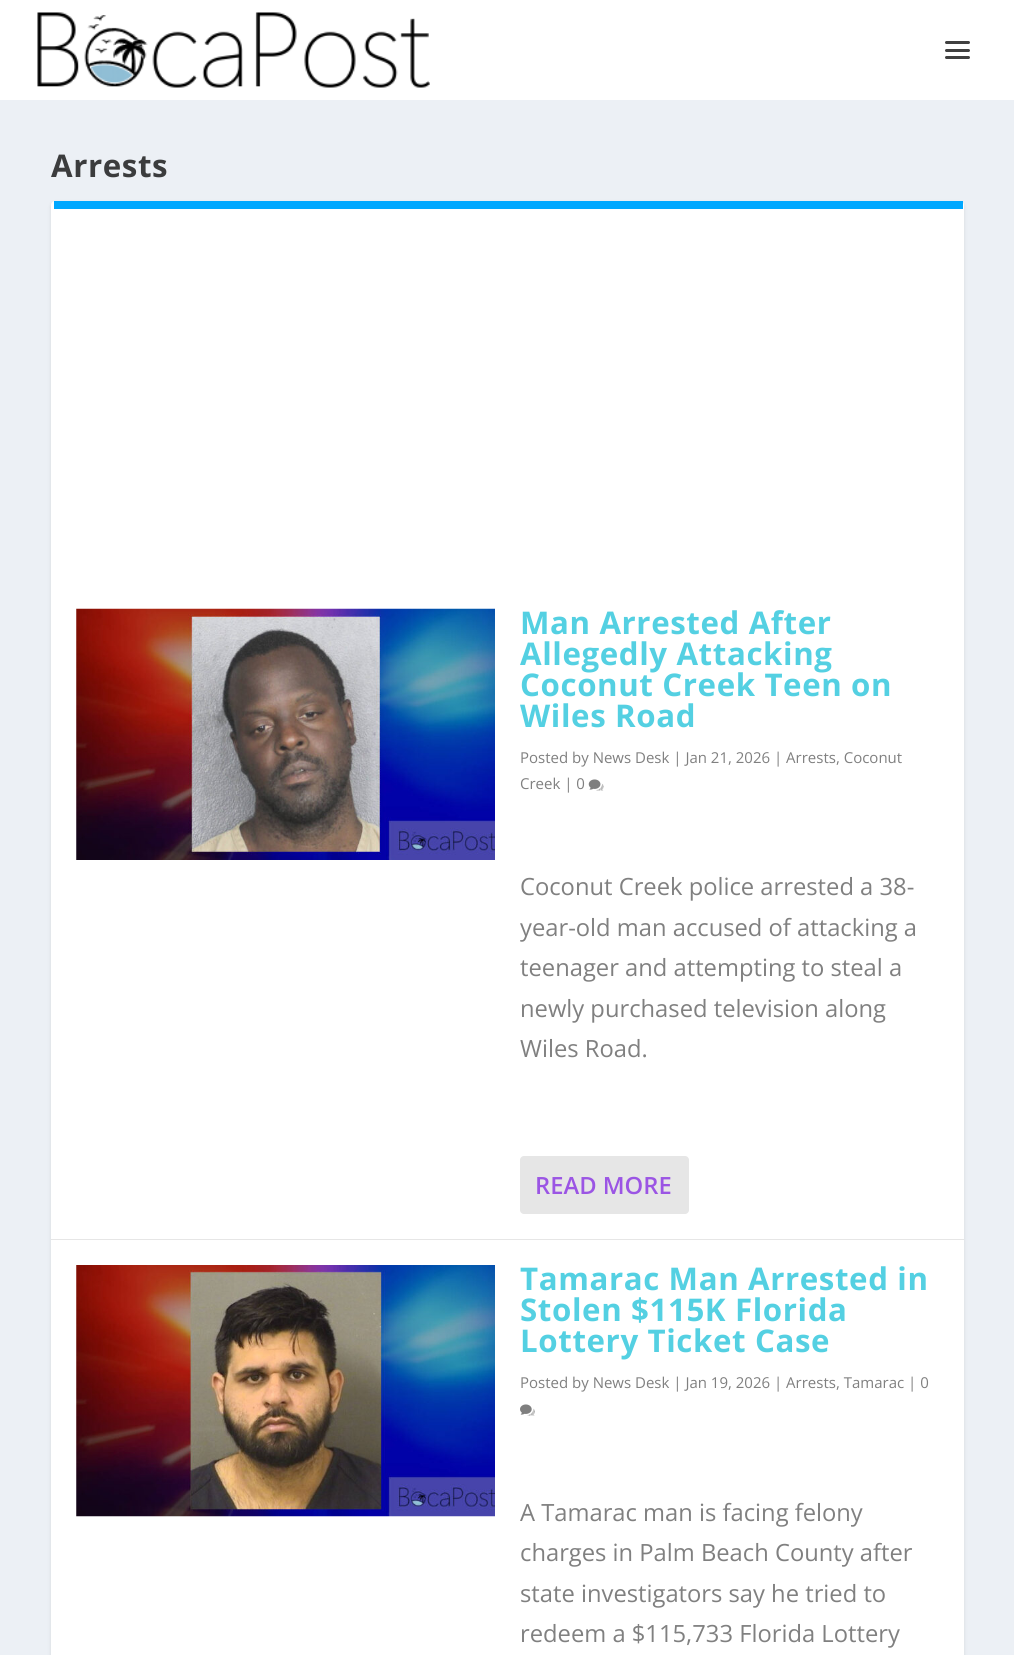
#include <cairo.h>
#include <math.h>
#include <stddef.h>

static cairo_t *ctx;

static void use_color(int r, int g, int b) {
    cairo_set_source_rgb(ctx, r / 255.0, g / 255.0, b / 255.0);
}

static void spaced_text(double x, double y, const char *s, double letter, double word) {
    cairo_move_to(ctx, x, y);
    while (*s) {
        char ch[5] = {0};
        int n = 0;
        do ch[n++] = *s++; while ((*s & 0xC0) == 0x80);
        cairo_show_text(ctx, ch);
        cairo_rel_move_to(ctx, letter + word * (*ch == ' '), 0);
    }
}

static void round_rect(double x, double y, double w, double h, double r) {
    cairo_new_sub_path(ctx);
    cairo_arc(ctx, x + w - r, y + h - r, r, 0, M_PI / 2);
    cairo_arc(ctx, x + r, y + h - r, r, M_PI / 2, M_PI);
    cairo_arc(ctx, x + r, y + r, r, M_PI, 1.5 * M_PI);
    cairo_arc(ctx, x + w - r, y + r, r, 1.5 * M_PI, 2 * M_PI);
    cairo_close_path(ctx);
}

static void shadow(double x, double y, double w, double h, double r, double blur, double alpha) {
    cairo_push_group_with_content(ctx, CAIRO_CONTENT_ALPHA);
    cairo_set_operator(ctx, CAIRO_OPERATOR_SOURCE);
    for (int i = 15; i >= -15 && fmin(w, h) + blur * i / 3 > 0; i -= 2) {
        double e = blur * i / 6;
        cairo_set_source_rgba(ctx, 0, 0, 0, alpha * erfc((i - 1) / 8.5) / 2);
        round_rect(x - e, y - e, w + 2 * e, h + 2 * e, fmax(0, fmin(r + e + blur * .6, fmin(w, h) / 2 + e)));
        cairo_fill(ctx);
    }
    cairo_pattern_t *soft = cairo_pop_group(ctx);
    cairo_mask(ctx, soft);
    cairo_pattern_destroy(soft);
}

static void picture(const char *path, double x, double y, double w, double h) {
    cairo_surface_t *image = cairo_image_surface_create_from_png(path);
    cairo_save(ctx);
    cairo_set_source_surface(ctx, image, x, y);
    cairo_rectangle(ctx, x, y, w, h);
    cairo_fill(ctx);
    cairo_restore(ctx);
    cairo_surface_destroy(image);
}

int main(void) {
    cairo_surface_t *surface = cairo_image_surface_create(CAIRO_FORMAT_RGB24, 1014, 1655);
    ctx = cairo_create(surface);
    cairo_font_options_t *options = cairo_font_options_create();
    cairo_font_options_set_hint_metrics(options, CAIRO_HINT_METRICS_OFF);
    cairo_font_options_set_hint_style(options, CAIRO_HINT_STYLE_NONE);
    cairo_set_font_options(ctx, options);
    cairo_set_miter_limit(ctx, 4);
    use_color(236, 240, 245);
    cairo_paint(ctx);
    use_color(255, 255, 255);
    cairo_rectangle(ctx, 0, 0, 1014, 100);
    cairo_fill(ctx);
    picture("img1.png", 37, 12, 393, 76);
    use_color(64, 64, 64);
    round_rect(945, 41, 25, 3, 1.5);
    cairo_fill(ctx);
    round_rect(945, 49, 25, 3, 1.5);
    cairo_fill(ctx);
    round_rect(945, 56, 25, 3, 1.5);
    cairo_fill(ctx);
    cairo_select_font_face(ctx, "Open Sans", CAIRO_FONT_SLANT_NORMAL, CAIRO_FONT_WEIGHT_BOLD);
    cairo_set_font_size(ctx, 31.25);
    use_color(59, 60, 61);
    spaced_text(51, 177, "Arrests", 0.6, 0);
    use_color(0, 0, 0);
    shadow(51, 203, 913, 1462, 4, 2, 0.1);
    use_color(255, 255, 255);
    round_rect(51, 201, 913, 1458, 4);
    cairo_fill(ctx);
    use_color(0, 168, 255);
    cairo_rectangle(ctx, 54, 201, 909, 8);
    cairo_fill(ctx);
    use_color(230, 230, 230);
    cairo_rectangle(ctx, 51, 1239, 913, 1);
    cairo_fill(ctx);
    picture("img2.png", 76, 608, 419, 252);
    use_color(84, 208, 226);
    spaced_text(520, 634, "Man Arrested After", 0.6, 0);
    spaced_text(520, 665, "Allegedly Attacking", 0.6, 0);
    spaced_text(520, 696, "Coconut Creek Teen on", 0.6, 0);
    spaced_text(520, 727, "Wiles Road", 0.6, 0);
    cairo_select_font_face(ctx, "Open Sans", CAIRO_FONT_SLANT_NORMAL, CAIRO_FONT_WEIGHT_NORMAL);
    cairo_set_font_size(ctx, 15);
    use_color(128, 128, 128);
    cairo_move_to(ctx, 520, 763);
    cairo_show_text(ctx, "Posted by News Desk | Jan 21, 2026 | Arrests, Coconut");
    cairo_move_to(ctx, 520, 789);
    cairo_show_text(ctx, "Creek | 0");
    picture("img3.png", 588, 779, 16, 12);
    cairo_set_font_size(ctx, 23.75);
    cairo_move_to(ctx, 520, 895);
    cairo_show_text(ctx, "Coconut Creek police arrested a 38-");
    cairo_move_to(ctx, 520, 936);
    cairo_show_text(ctx, "year-old man accused of attacking a");
    cairo_move_to(ctx, 520, 976);
    cairo_show_text(ctx, "teenager and attempting to steal a");
    cairo_move_to(ctx, 520, 1017);
    cairo_show_text(ctx, "newly purchased television along");
    cairo_move_to(ctx, 520, 1057);
    cairo_show_text(ctx, "Wiles Road.");
    use_color(230, 230, 230);
    round_rect(520, 1156, 169, 58, 4);
    cairo_fill(ctx);
    cairo_select_font_face(ctx, "Open Sans SemiBold", CAIRO_FONT_SLANT_NORMAL, CAIRO_FONT_WEIGHT_NORMAL);
    use_color(155, 85, 228);
    cairo_move_to(ctx, 535, 1194);
    cairo_show_text(ctx, "READ MORE");
    picture("img4.png", 76, 1265, 419, 252);
    cairo_select_font_face(ctx, "Open Sans", CAIRO_FONT_SLANT_NORMAL, CAIRO_FONT_WEIGHT_BOLD);
    cairo_set_font_size(ctx, 31.25);
    use_color(84, 208, 226);
    spaced_text(520, 1290, "Tamarac Man Arrested in", 0.6, 0);
    spaced_text(520, 1321, "Stolen $115K Florida", 0.6, 0);
    spaced_text(520, 1352, "Lottery Ticket Case", 0.6, 0);
    cairo_select_font_face(ctx, "Open Sans", CAIRO_FONT_SLANT_NORMAL, CAIRO_FONT_WEIGHT_NORMAL);
    cairo_set_font_size(ctx, 15);
    use_color(128, 128, 128);
    cairo_move_to(ctx, 520, 1388);
    cairo_show_text(ctx, "Posted by News Desk | Jan 19, 2026 | Arrests, Tamarac | 0");
    picture("img5.png", 520, 1404, 15, 12);
    cairo_set_font_size(ctx, 23.75);
    cairo_move_to(ctx, 520, 1521);
    cairo_show_text(ctx, "A Tamarac man is facing felony");
    cairo_move_to(ctx, 520, 1561);
    cairo_show_text(ctx, "charges in Palm Beach County after");
    cairo_move_to(ctx, 520, 1602);
    cairo_show_text(ctx, "state investigators say he tried to");
    cairo_move_to(ctx, 520, 1642);
    cairo_show_text(ctx, "redeem a $115,733 Florida Lottery");
    cairo_surface_write_to_png(surface, "result.png");
    cairo_font_options_destroy(options);
    cairo_destroy(ctx);
    cairo_surface_destroy(surface);
    return 0;
}
